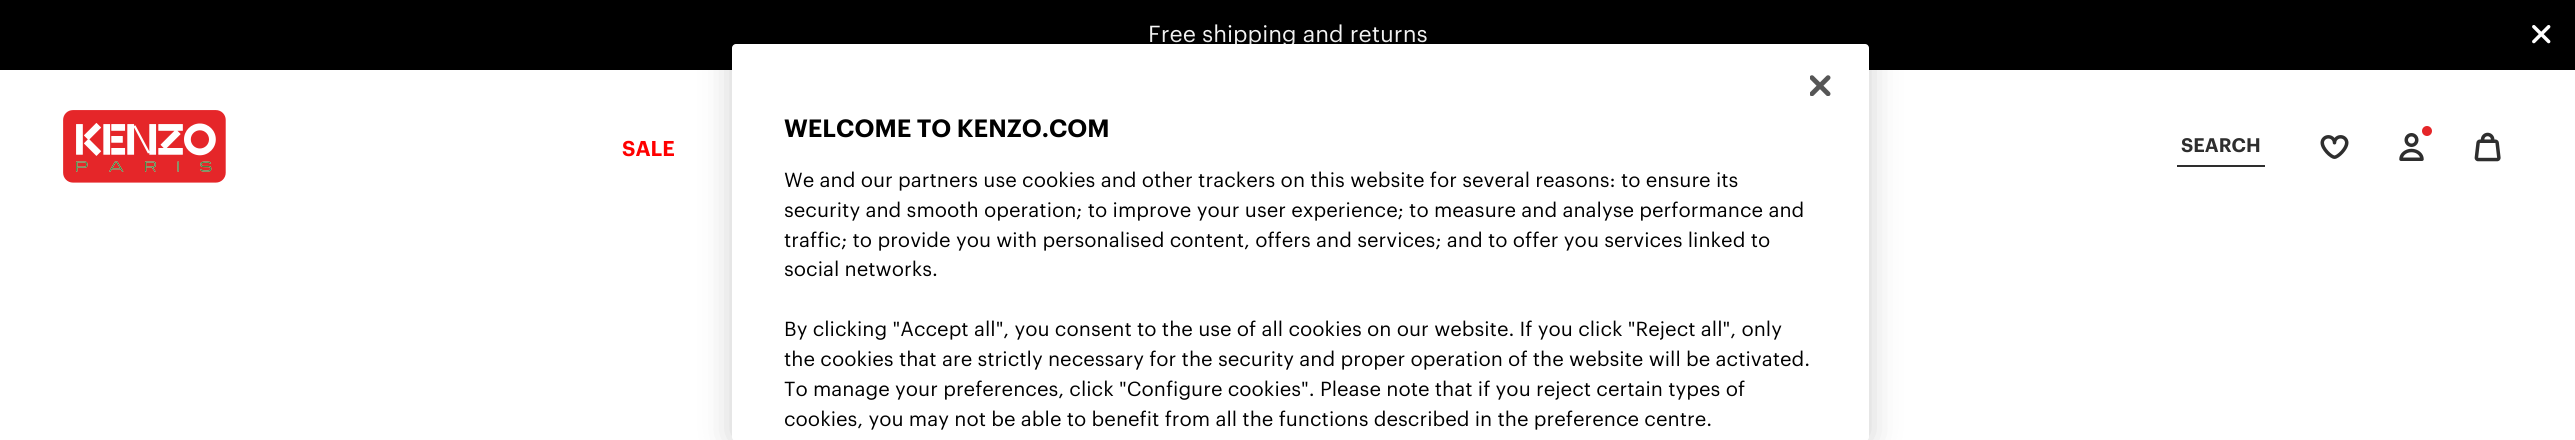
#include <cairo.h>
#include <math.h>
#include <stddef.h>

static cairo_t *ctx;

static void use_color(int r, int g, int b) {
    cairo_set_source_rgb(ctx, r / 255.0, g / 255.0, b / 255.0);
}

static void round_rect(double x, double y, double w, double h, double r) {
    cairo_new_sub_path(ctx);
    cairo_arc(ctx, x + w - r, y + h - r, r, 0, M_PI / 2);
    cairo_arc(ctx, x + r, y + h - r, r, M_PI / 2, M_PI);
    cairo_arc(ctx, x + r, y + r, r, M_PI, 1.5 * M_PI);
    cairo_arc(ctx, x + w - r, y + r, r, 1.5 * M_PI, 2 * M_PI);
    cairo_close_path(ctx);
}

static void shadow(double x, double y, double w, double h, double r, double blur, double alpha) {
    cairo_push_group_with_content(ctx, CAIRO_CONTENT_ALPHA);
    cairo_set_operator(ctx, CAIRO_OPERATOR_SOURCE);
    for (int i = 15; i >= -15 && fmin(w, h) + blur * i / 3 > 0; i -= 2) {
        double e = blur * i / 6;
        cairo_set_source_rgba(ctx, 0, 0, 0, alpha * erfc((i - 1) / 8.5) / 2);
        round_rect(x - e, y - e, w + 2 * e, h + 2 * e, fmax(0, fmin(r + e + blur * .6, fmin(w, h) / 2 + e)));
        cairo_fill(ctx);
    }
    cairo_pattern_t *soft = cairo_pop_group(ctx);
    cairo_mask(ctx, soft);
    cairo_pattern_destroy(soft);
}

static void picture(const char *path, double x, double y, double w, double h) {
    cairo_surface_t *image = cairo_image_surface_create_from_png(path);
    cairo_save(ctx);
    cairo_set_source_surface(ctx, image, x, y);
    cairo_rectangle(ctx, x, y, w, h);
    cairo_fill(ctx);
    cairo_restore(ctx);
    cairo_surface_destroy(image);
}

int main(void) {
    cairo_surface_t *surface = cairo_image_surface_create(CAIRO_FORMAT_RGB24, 2575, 440);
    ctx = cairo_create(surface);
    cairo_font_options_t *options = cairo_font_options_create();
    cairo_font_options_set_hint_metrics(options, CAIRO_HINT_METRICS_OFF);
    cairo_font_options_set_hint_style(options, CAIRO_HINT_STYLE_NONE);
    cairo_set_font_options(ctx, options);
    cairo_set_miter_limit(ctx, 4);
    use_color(255, 255, 255);
    cairo_paint(ctx);
    use_color(0, 0, 0);
    cairo_rectangle(ctx, 0, 0, 2575, 70);
    cairo_fill(ctx);
    cairo_select_font_face(ctx, "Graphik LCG", CAIRO_FONT_SLANT_NORMAL, CAIRO_FONT_WEIGHT_NORMAL);
    cairo_set_font_size(ctx, 22.75);
    use_color(255, 255, 255);
    cairo_move_to(ctx, 1148, 42);
    cairo_show_text(ctx, "Free shipping and returns");
    picture("img1.png", 2532, 25, 19, 19);
    picture("img2.png", 63, 110, 163, 73);
    cairo_select_font_face(ctx, "Graphik SemiBold", CAIRO_FONT_SLANT_NORMAL, CAIRO_FONT_WEIGHT_NORMAL);
    cairo_set_font_size(ctx, 21);
    use_color(255, 0, 0);
    cairo_move_to(ctx, 622, 156);
    cairo_show_text(ctx, "SALE");
    use_color(46, 46, 46);
    cairo_rectangle(ctx, 2177, 165, 88, 2);
    cairo_fill(ctx);
    cairo_set_font_size(ctx, 19.25);
    cairo_move_to(ctx, 2181, 152);
    cairo_show_text(ctx, "SEARCH");
    picture("img3.png", 2320, 135, 29, 24);
    picture("img4.png", 2399, 126, 33, 35);
    picture("img5.png", 2474, 132, 27, 30);
    use_color(0, 0, 0);
    shadow(732, 44, 1137, 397, 4, 16, 0.2);
    use_color(255, 255, 255);
    round_rect(732, 44, 1137, 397, 4);
    cairo_fill(ctx);
    picture("img6.png", 1810, 75, 21, 21);
    cairo_set_font_size(ctx, 24.5);
    use_color(0, 0, 0);
    cairo_move_to(ctx, 784, 137);
    cairo_show_text(ctx, "WELCOME TO KENZO.COM");
    cairo_select_font_face(ctx, "Graphik LCG", CAIRO_FONT_SLANT_NORMAL, CAIRO_FONT_WEIGHT_NORMAL);
    cairo_set_font_size(ctx, 19.92);
    cairo_move_to(ctx, 784, 187);
    cairo_show_text(ctx, "We and our partners use cookies and other trackers on this website for several reasons: to ensure its");
    cairo_move_to(ctx, 784, 217);
    cairo_show_text(ctx, "security and smooth operation; to improve your user experience; to measure and analyse performance and");
    cairo_move_to(ctx, 784, 247);
    cairo_show_text(ctx, "traffic; to provide you with personalised content, offers and services; and to offer you services linked to");
    cairo_move_to(ctx, 784, 276);
    cairo_show_text(ctx, "social networks.");
    cairo_move_to(ctx, 784, 336);
    cairo_show_text(ctx, "By clicking \"Accept all\", you consent to the use of all cookies on our website. If you click \"Reject all\", only");
    cairo_move_to(ctx, 784, 366);
    cairo_show_text(ctx, "the cookies that are strictly necessary for the security and proper operation of the website will be activated.");
    cairo_move_to(ctx, 784, 396);
    cairo_show_text(ctx, "To manage your preferences, click \"Configure cookies\". Please note that if you reject certain types of");
    cairo_move_to(ctx, 784, 426);
    cairo_show_text(ctx, "cookies, you may not be able to benefit from all the functions described in the preference centre.");
    cairo_surface_write_to_png(surface, "result.png");
    cairo_font_options_destroy(options);
    cairo_destroy(ctx);
    cairo_surface_destroy(surface);
    return 0;
}
